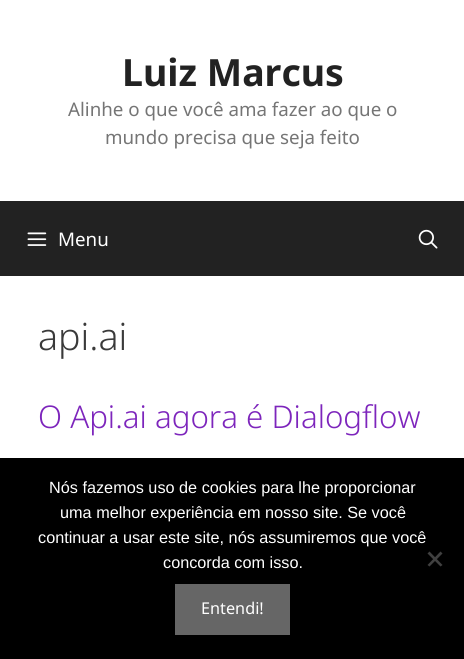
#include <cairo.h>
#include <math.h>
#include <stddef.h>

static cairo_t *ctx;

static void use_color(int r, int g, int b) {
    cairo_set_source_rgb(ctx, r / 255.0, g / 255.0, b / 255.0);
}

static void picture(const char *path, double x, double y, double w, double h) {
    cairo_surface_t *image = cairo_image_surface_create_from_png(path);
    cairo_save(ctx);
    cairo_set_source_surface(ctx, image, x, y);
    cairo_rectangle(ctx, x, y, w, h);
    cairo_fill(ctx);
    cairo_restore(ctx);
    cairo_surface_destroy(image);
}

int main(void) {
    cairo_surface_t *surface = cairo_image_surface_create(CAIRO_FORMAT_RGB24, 464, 659);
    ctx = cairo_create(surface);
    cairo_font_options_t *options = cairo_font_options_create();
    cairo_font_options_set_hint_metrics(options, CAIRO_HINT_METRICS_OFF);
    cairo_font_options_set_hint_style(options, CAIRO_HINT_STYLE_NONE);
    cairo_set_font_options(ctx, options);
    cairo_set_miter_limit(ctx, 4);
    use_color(34, 34, 34);
    cairo_paint(ctx);
    use_color(255, 255, 255);
    cairo_rectangle(ctx, 0, 0, 464, 201);
    cairo_fill(ctx);
    cairo_select_font_face(ctx, "Noto Sans", CAIRO_FONT_SLANT_NORMAL, CAIRO_FONT_WEIGHT_BOLD);
    cairo_set_font_size(ctx, 37.5);
    use_color(34, 34, 34);
    cairo_move_to(ctx, 122, 86);
    cairo_show_text(ctx, "Luiz Marcus");
    cairo_select_font_face(ctx, "Noto Sans", CAIRO_FONT_SLANT_NORMAL, CAIRO_FONT_WEIGHT_NORMAL);
    cairo_set_font_size(ctx, 18.75);
    use_color(117, 117, 117);
    cairo_move_to(ctx, 68, 116);
    cairo_show_text(ctx, "Alinhe o que você ama fazer ao que o");
    cairo_move_to(ctx, 105, 144);
    cairo_show_text(ctx, "mundo precisa que seja feito");
    picture("img1.png", 27, 232, 20, 14);
    use_color(255, 255, 255);
    cairo_move_to(ctx, 58, 246);
    cairo_show_text(ctx, "Menu");
    picture("img2.png", 418, 229, 20, 20);
    cairo_rectangle(ctx, 0, 276, 464, 182);
    cairo_fill(ctx);
    cairo_select_font_face(ctx, "Noto Sans Light", CAIRO_FONT_SLANT_NORMAL, CAIRO_FONT_WEIGHT_NORMAL);
    cairo_set_font_size(ctx, 37.5);
    use_color(58, 58, 58);
    cairo_move_to(ctx, 38, 350);
    cairo_show_text(ctx, "api.ai");
    cairo_set_font_size(ctx, 31.25);
    use_color(125, 37, 188);
    cairo_move_to(ctx, 38, 428);
    cairo_show_text(ctx, "O Api.ai agora é Dialogflow");
    use_color(0, 0, 0);
    cairo_rectangle(ctx, 0, 458, 464, 201);
    cairo_fill(ctx);
    cairo_select_font_face(ctx, "Liberation Sans", CAIRO_FONT_SLANT_NORMAL, CAIRO_FONT_WEIGHT_NORMAL);
    cairo_set_font_size(ctx, 16.25);
    use_color(255, 255, 255);
    cairo_move_to(ctx, 49, 493);
    cairo_show_text(ctx, "Nós fazemos uso de cookies para lhe proporcionar");
    cairo_move_to(ctx, 60, 518);
    cairo_show_text(ctx, "uma melhor experiência em nosso site. Se você");
    cairo_move_to(ctx, 38, 543);
    cairo_show_text(ctx, "continuar a usar este site, nós assumiremos que você");
    cairo_move_to(ctx, 163, 568);
    cairo_show_text(ctx, "concorda com isso.");
    use_color(64, 64, 64);
    cairo_new_path(ctx);
    cairo_move_to(ctx, 440.5, 551.5);
    cairo_line_to(ctx, 442.5, 553.5);
    cairo_line_to(ctx, 429.5, 566.5);
    cairo_line_to(ctx, 427.5, 565);
    cairo_close_path(ctx);
    cairo_fill(ctx);
    cairo_new_path(ctx);
    cairo_move_to(ctx, 427.5, 553.5);
    cairo_line_to(ctx, 429.5, 551.5);
    cairo_line_to(ctx, 442.5, 565);
    cairo_line_to(ctx, 440.5, 566.5);
    cairo_close_path(ctx);
    cairo_fill(ctx);
    use_color(102, 102, 102);
    cairo_rectangle(ctx, 175, 584, 115, 51);
    cairo_fill(ctx);
    cairo_select_font_face(ctx, "Noto Sans", CAIRO_FONT_SLANT_NORMAL, CAIRO_FONT_WEIGHT_NORMAL);
    use_color(255, 255, 255);
    cairo_move_to(ctx, 201, 614);
    cairo_show_text(ctx, "Entendi!");
    cairo_surface_write_to_png(surface, "result.png");
    cairo_font_options_destroy(options);
    cairo_destroy(ctx);
    cairo_surface_destroy(surface);
    return 0;
}
